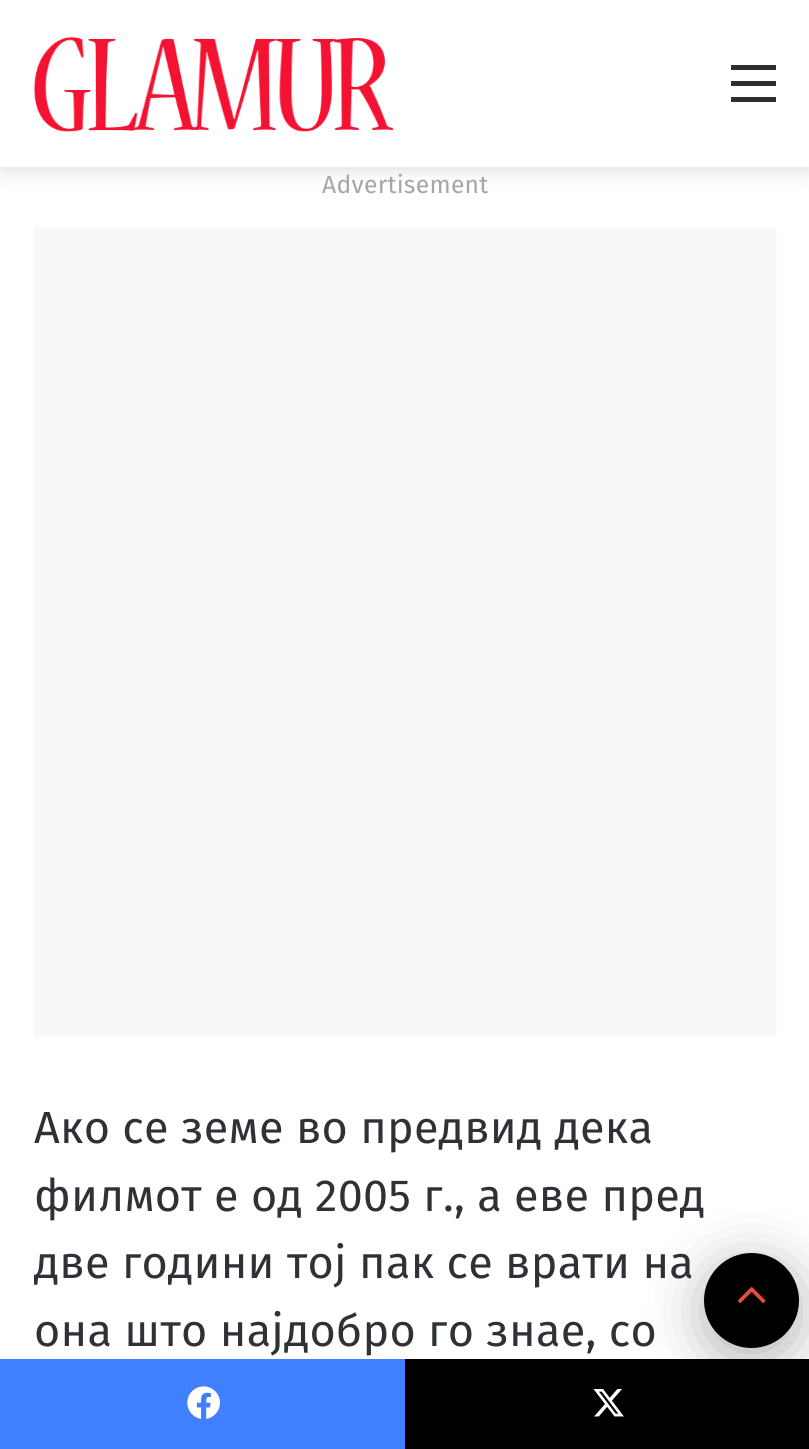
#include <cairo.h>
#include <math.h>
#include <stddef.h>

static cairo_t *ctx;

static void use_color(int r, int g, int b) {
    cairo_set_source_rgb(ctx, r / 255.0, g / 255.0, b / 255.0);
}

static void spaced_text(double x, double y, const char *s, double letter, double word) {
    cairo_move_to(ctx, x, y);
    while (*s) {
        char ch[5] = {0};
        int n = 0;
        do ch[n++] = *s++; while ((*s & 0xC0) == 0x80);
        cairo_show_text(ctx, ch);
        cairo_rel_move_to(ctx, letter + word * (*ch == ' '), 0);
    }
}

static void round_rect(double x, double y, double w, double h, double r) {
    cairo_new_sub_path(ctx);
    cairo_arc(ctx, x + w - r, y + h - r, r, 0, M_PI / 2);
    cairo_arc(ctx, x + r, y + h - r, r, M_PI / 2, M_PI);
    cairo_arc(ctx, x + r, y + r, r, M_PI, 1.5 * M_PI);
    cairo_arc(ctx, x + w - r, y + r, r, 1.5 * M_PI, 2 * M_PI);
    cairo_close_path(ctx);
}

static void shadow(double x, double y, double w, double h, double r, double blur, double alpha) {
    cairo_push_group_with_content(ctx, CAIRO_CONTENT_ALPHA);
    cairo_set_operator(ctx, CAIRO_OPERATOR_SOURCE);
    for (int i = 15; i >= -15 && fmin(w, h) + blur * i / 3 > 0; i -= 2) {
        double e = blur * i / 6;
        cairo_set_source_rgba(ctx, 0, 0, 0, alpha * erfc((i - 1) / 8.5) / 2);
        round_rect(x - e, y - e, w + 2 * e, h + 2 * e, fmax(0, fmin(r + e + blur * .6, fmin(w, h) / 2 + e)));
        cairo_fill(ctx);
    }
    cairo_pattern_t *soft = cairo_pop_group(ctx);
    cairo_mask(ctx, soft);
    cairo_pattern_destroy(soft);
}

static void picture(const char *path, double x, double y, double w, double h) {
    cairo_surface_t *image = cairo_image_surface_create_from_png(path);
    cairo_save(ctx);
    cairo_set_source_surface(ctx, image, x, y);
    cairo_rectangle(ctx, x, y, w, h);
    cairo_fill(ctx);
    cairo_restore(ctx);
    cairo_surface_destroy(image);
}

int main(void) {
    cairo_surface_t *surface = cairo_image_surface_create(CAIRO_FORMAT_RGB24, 809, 1449);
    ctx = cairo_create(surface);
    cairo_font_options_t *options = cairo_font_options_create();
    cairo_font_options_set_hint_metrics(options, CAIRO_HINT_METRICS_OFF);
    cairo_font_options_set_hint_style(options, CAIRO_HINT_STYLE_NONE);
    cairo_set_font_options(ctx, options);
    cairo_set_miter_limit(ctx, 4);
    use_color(255, 255, 255);
    cairo_paint(ctx);
    cairo_save(ctx);
    cairo_set_fill_rule(ctx, CAIRO_FILL_RULE_EVEN_ODD);
    cairo_new_path(ctx);
    cairo_move_to(ctx, 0, 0);
    cairo_line_to(ctx, 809, 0);
    cairo_line_to(ctx, 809, 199);
    cairo_line_to(ctx, 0, 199);
    cairo_close_path(ctx);
    cairo_move_to(ctx, 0, 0);
    cairo_line_to(ctx, 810, 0);
    cairo_line_to(ctx, 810, 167);
    cairo_line_to(ctx, 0, 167);
    cairo_close_path(ctx);
    cairo_clip(ctx);
    use_color(99, 99, 99);
    shadow(0, 5, 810, 166, 0, 9, 0.2);
    cairo_restore(ctx);
    cairo_set_source_rgba(ctx, 1, 1, 1, 0.95);
    cairo_rectangle(ctx, 0, 166, 809, 1);
    cairo_fill(ctx);
    picture("img1.png", 34, 37, 360, 95);
    use_color(44, 47, 52);
    cairo_rectangle(ctx, 731, 81, 45, 5);
    cairo_fill(ctx);
    cairo_rectangle(ctx, 731, 65, 45, 5);
    cairo_fill(ctx);
    cairo_rectangle(ctx, 731, 97, 45, 5);
    cairo_fill(ctx);
    cairo_select_font_face(ctx, "Fira Sans", CAIRO_FONT_SLANT_NORMAL, CAIRO_FONT_WEIGHT_NORMAL);
    cairo_set_font_size(ctx, 24.75);
    use_color(166, 166, 166);
    spaced_text(322, 193, "Advertisement", 0.25, 0);
    use_color(249, 247, 247);
    cairo_rectangle(ctx, 34, 227, 742, 810);
    cairo_fill(ctx);
    cairo_set_font_size(ctx, 45);
    use_color(46, 49, 54);
    spaced_text(34, 1143, "Ако се земе во предвид дека", 0.25, 0);
    spaced_text(34, 1211, "филмот е од 2005 г., а еве пред", 0.25, 0);
    spaced_text(34, 1278, "две години тој пак се врати на", 0.25, 0);
    spaced_text(34, 1346, "она што најдобро го знае, со", 0.25, 0);
    use_color(0, 0, 0);
    shadow(704, 1265, 95, 94, 47, 28, 0.3);
    use_color(0, 0, 0);
    cairo_arc(ctx, 751.5, 1300.5, 47.5, 0, 2 * M_PI);
    cairo_fill(ctx);
    picture("img2.png", 737, 1287, 29, 16);
    use_color(64, 128, 255);
    cairo_rectangle(ctx, 0, 1359, 405, 90);
    cairo_fill(ctx);
    picture("img3.png", 187, 1386, 33, 33);
    use_color(0, 0, 0);
    cairo_rectangle(ctx, 405, 1359, 404, 90);
    cairo_fill(ctx);
    picture("img4.png", 593, 1389, 31, 28);
    cairo_surface_write_to_png(surface, "result.png");
    cairo_font_options_destroy(options);
    cairo_destroy(ctx);
    cairo_surface_destroy(surface);
    return 0;
}
